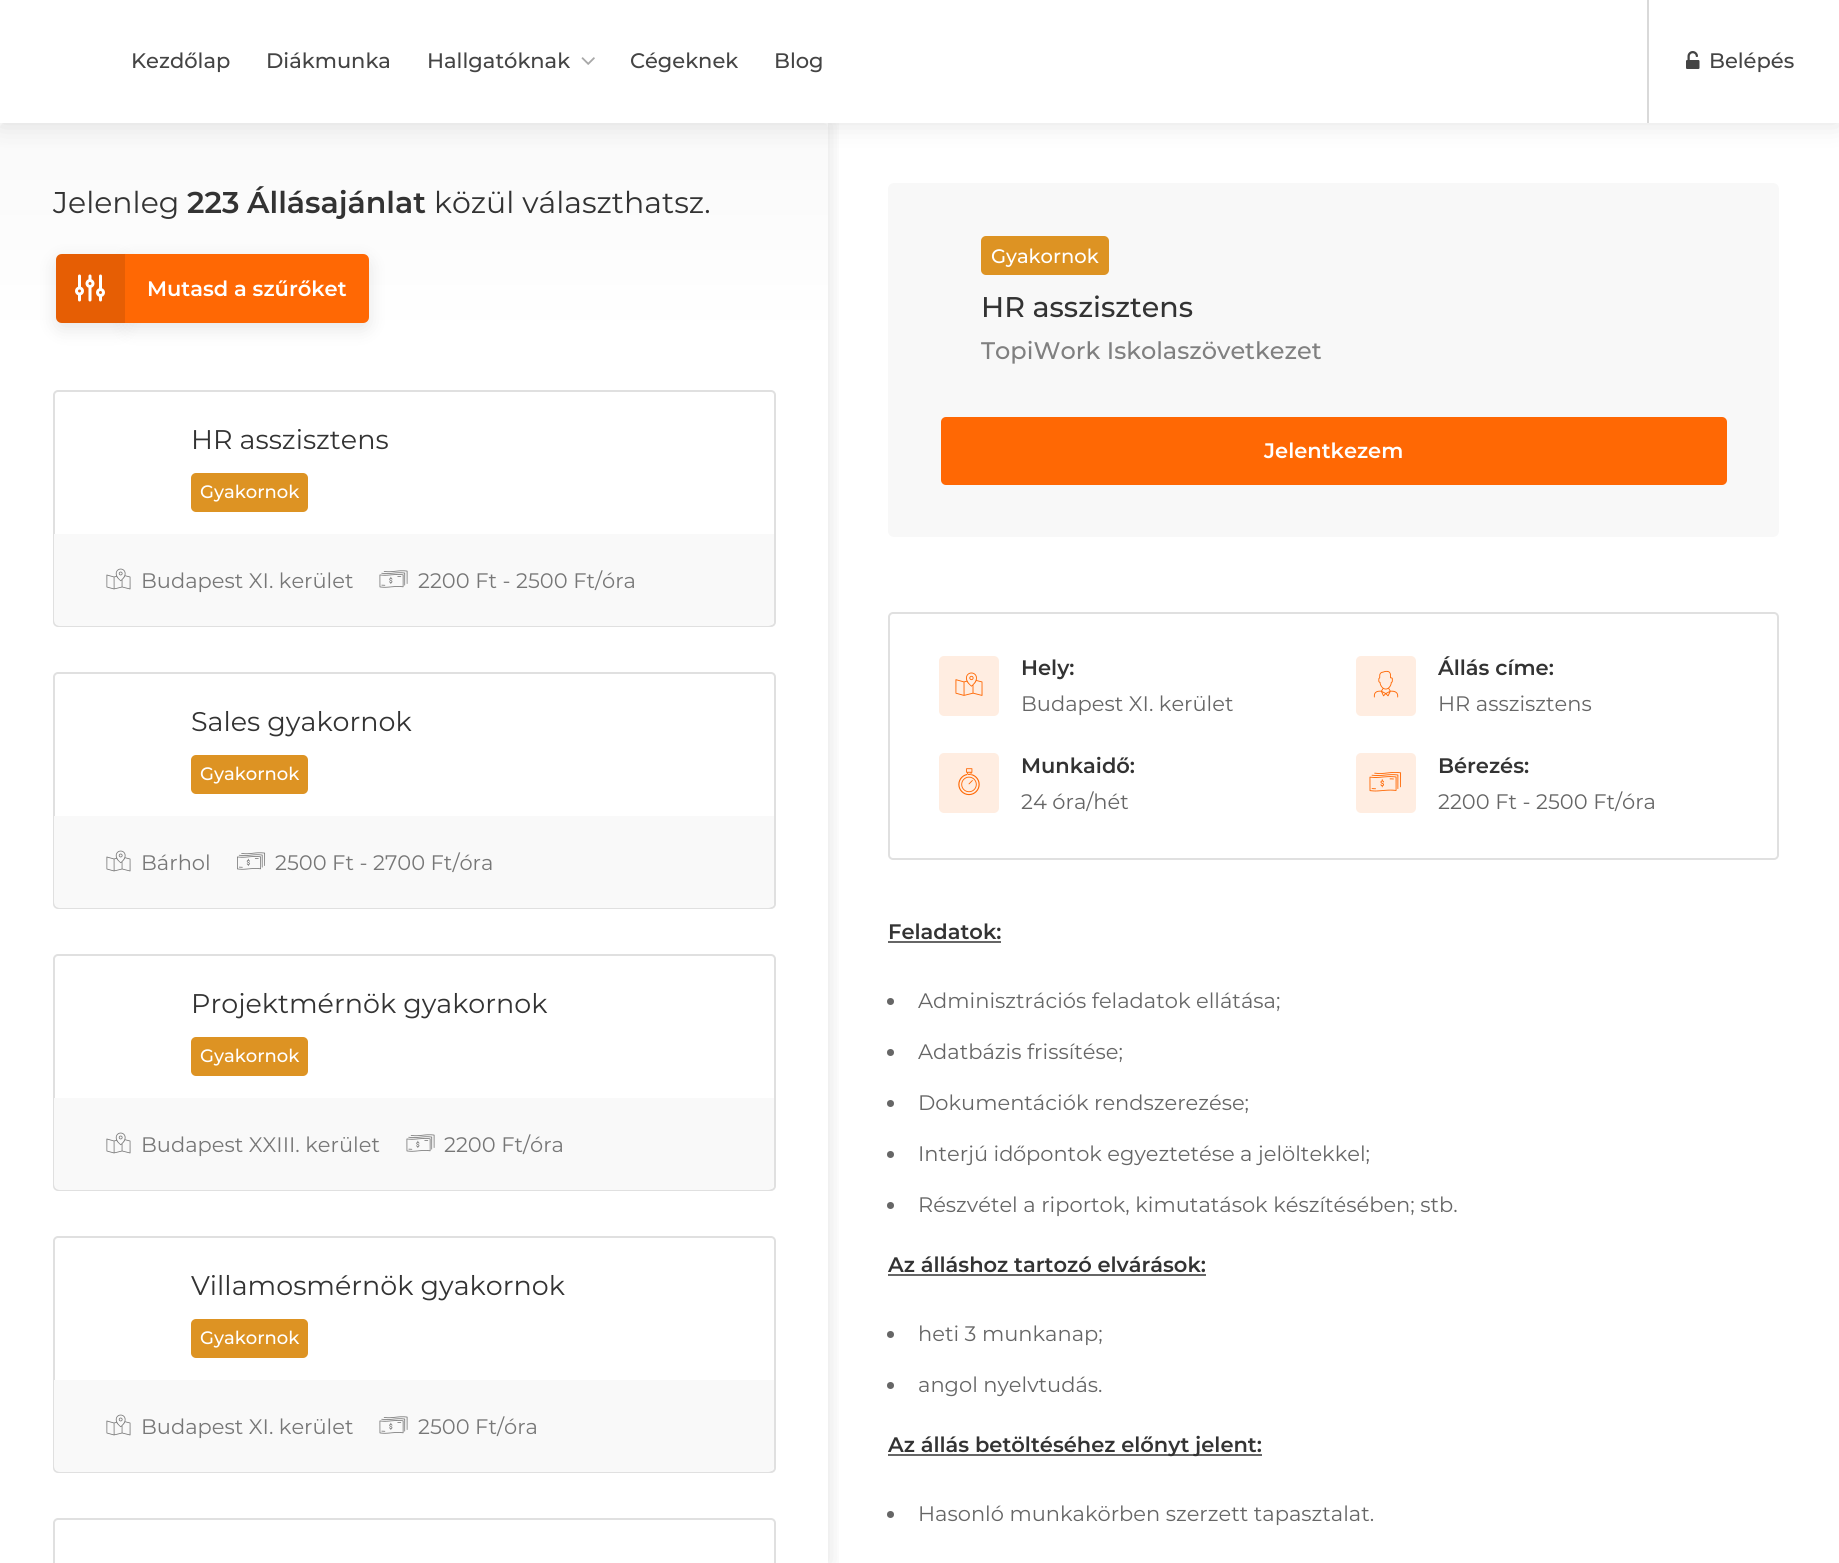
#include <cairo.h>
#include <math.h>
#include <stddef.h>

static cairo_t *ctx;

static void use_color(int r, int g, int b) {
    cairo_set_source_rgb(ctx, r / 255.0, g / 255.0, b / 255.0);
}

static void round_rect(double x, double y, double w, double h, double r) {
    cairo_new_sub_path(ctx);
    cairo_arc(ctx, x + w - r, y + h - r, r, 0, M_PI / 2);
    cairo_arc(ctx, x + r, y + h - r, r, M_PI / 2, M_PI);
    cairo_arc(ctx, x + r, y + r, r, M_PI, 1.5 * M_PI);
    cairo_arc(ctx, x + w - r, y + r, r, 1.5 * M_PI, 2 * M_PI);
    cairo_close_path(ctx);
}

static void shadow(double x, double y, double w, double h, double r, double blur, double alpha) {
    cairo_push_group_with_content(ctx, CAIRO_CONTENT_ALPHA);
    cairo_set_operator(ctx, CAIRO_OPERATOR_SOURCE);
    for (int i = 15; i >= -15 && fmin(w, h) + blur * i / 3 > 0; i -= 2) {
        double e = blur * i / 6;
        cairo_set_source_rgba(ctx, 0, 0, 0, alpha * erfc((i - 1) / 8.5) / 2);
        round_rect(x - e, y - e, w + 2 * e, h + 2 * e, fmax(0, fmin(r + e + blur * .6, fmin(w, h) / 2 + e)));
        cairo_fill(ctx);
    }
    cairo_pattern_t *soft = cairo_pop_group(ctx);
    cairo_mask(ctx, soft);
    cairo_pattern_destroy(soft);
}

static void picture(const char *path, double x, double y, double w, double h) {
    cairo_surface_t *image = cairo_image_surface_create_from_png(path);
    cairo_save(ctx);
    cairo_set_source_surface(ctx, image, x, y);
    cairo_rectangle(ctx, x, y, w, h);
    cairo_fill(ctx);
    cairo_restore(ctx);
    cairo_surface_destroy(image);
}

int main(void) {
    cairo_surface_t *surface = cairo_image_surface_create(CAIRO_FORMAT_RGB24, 1839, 1563);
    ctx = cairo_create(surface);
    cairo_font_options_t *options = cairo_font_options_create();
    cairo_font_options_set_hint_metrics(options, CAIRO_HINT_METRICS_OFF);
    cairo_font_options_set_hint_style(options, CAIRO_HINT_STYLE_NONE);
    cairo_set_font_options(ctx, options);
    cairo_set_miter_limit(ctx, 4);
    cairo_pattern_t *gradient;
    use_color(255, 255, 255);
    cairo_paint(ctx);
    cairo_save(ctx);
    cairo_rectangle(ctx, 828, 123, 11, 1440);
    cairo_clip(ctx);
    use_color(0, 0, 0);
    shadow(0, 123, 828, 1440, 0, 11, 0.12);
    cairo_restore(ctx);
    gradient = cairo_pattern_create_linear(414, 123, 414, 338);
    cairo_pattern_add_color_stop_rgba(gradient, 0, 0.976, 0.976, 0.976, 1);
    cairo_pattern_add_color_stop_rgba(gradient, 1, 1, 1, 1, 1);
    cairo_set_source(ctx, gradient);
    cairo_pattern_destroy(gradient);
    round_rect(0, 123, 828, 215, 5);
    cairo_fill(ctx);
    use_color(0, 0, 0);
    shadow(0, 0, 1839, 123, 0, 13.5, 0.12);
    use_color(255, 255, 255);
    cairo_rectangle(ctx, 0, 0, 1839, 123);
    cairo_fill(ctx);
    cairo_select_font_face(ctx, "Montserrat Medium", CAIRO_FONT_SLANT_NORMAL, CAIRO_FONT_WEIGHT_NORMAL);
    cairo_set_font_size(ctx, 21);
    use_color(68, 68, 68);
    cairo_move_to(ctx, 131, 68);
    cairo_show_text(ctx, "Kezdőlap");
    cairo_move_to(ctx, 266, 68);
    cairo_show_text(ctx, "Diákmunka");
    cairo_move_to(ctx, 427, 68);
    cairo_show_text(ctx, "Hallgatóknak");
    picture("img1.png", 581, 57, 14, 8);
    cairo_move_to(ctx, 630, 68);
    cairo_show_text(ctx, "Cégeknek");
    cairo_move_to(ctx, 774, 68);
    cairo_show_text(ctx, "Blog");
    use_color(217, 217, 217);
    cairo_rectangle(ctx, 1647, 0, 2, 123);
    cairo_fill(ctx);
    picture("img2.png", 1686, 51, 14, 18);
    use_color(68, 68, 68);
    cairo_move_to(ctx, 1709, 68);
    cairo_show_text(ctx, "Belépés");
    cairo_select_font_face(ctx, "Montserrat", CAIRO_FONT_SLANT_NORMAL, CAIRO_FONT_WEIGHT_NORMAL);
    cairo_set_font_size(ctx, 30);
    use_color(51, 51, 51);
    cairo_move_to(ctx, 53, 213);
    cairo_show_text(ctx, "Jelenleg");
    cairo_select_font_face(ctx, "Montserrat SemiBold", CAIRO_FONT_SLANT_NORMAL, CAIRO_FONT_WEIGHT_NORMAL);
    cairo_move_to(ctx, 187, 213);
    cairo_show_text(ctx, "223");
    cairo_move_to(ctx, 247, 213);
    cairo_show_text(ctx, "Állásajánlat");
    cairo_select_font_face(ctx, "Montserrat", CAIRO_FONT_SLANT_NORMAL, CAIRO_FONT_WEIGHT_NORMAL);
    cairo_move_to(ctx, 434, 213);
    cairo_show_text(ctx, "közül választhatsz.");
    use_color(0, 0, 0);
    shadow(125, 260, 244, 69, 6, 9, 0.1);
    shadow(56, 260, 69, 69, 6, 9, 0.1);
    use_color(255, 104, 4);
    cairo_new_path(ctx);
    cairo_move_to(ctx, 62, 254);
    cairo_line_to(ctx, 125, 254);
    cairo_line_to(ctx, 125, 323);
    cairo_line_to(ctx, 62, 323);
    cairo_curve_to(ctx, 58.5, 323, 56, 320.5, 56, 317);
    cairo_line_to(ctx, 56, 260);
    cairo_curve_to(ctx, 56, 256.5, 58.5, 254, 62, 254);
    cairo_close_path(ctx);
    cairo_fill(ctx);
    cairo_set_source_rgba(ctx, 0, 0, 0, 0.1);
    cairo_new_path(ctx);
    cairo_move_to(ctx, 62, 254);
    cairo_line_to(ctx, 125, 254);
    cairo_line_to(ctx, 125, 323);
    cairo_line_to(ctx, 62, 323);
    cairo_curve_to(ctx, 58.5, 323, 56, 320.5, 56, 317);
    cairo_line_to(ctx, 56, 260);
    cairo_curve_to(ctx, 56, 256.5, 58.5, 254, 62, 254);
    cairo_close_path(ctx);
    cairo_fill(ctx);
    picture("img3.png", 75, 274, 30, 28);
    use_color(255, 104, 4);
    cairo_new_path(ctx);
    cairo_move_to(ctx, 125, 254);
    cairo_line_to(ctx, 363, 254);
    cairo_curve_to(ctx, 366.5, 254, 369, 256.5, 369, 260);
    cairo_line_to(ctx, 369, 317);
    cairo_curve_to(ctx, 369, 320.5, 366.5, 323, 363, 323);
    cairo_line_to(ctx, 125, 323);
    cairo_close_path(ctx);
    cairo_fill(ctx);
    cairo_select_font_face(ctx, "Montserrat SemiBold", CAIRO_FONT_SLANT_NORMAL, CAIRO_FONT_WEIGHT_NORMAL);
    cairo_set_font_size(ctx, 21);
    use_color(255, 255, 255);
    cairo_move_to(ctx, 147, 296);
    cairo_show_text(ctx, "Mutasd a szűrőket");
    round_rect(54, 391, 721, 235, 4);
    use_color(224, 224, 224);
    cairo_stroke(ctx);
    cairo_select_font_face(ctx, "Montserrat", CAIRO_FONT_SLANT_NORMAL, CAIRO_FONT_WEIGHT_NORMAL);
    cairo_set_font_size(ctx, 27);
    use_color(51, 51, 51);
    cairo_move_to(ctx, 191, 449);
    cairo_show_text(ctx, "HR asszisztens");
    use_color(221, 147, 35);
    round_rect(191, 473, 117, 39, 5);
    cairo_fill(ctx);
    cairo_select_font_face(ctx, "Montserrat Medium", CAIRO_FONT_SLANT_NORMAL, CAIRO_FONT_WEIGHT_NORMAL);
    cairo_set_font_size(ctx, 18);
    use_color(255, 255, 255);
    cairo_move_to(ctx, 200, 498);
    cairo_show_text(ctx, "Gyakornok");
    use_color(249, 249, 249);
    cairo_new_path(ctx);
    cairo_move_to(ctx, 54, 534);
    cairo_line_to(ctx, 774, 534);
    cairo_line_to(ctx, 774, 620);
    cairo_curve_to(ctx, 774, 623.5, 771.5, 626, 768, 626);
    cairo_line_to(ctx, 60, 626);
    cairo_curve_to(ctx, 56.5, 626, 54, 623.5, 54, 620);
    cairo_close_path(ctx);
    cairo_fill(ctx);
    picture("img4.png", 106, 568, 25, 22);
    cairo_select_font_face(ctx, "Montserrat", CAIRO_FONT_SLANT_NORMAL, CAIRO_FONT_WEIGHT_NORMAL);
    cairo_set_font_size(ctx, 21);
    use_color(119, 119, 119);
    cairo_move_to(ctx, 141, 588);
    cairo_show_text(ctx, "Budapest XI. kerület");
    picture("img5.png", 379, 570, 29, 18);
    cairo_move_to(ctx, 418, 588);
    cairo_show_text(ctx, "2200 Ft - 2500 Ft/óra");
    round_rect(54, 673, 721, 235, 4);
    use_color(224, 224, 224);
    cairo_stroke(ctx);
    cairo_set_font_size(ctx, 27);
    use_color(51, 51, 51);
    cairo_move_to(ctx, 191, 731);
    cairo_show_text(ctx, "Sales gyakornok");
    use_color(221, 147, 35);
    round_rect(191, 755, 117, 39, 5);
    cairo_fill(ctx);
    cairo_select_font_face(ctx, "Montserrat Medium", CAIRO_FONT_SLANT_NORMAL, CAIRO_FONT_WEIGHT_NORMAL);
    cairo_set_font_size(ctx, 18);
    use_color(255, 255, 255);
    cairo_move_to(ctx, 200, 780);
    cairo_show_text(ctx, "Gyakornok");
    use_color(249, 249, 249);
    cairo_new_path(ctx);
    cairo_move_to(ctx, 54, 816);
    cairo_line_to(ctx, 774, 816);
    cairo_line_to(ctx, 774, 902);
    cairo_curve_to(ctx, 774, 905.5, 771.5, 908, 768, 908);
    cairo_line_to(ctx, 60, 908);
    cairo_curve_to(ctx, 56.5, 908, 54, 905.5, 54, 902);
    cairo_close_path(ctx);
    cairo_fill(ctx);
    picture("img4.png", 106, 850, 25, 22);
    cairo_select_font_face(ctx, "Montserrat", CAIRO_FONT_SLANT_NORMAL, CAIRO_FONT_WEIGHT_NORMAL);
    cairo_set_font_size(ctx, 21);
    use_color(119, 119, 119);
    cairo_move_to(ctx, 141, 870);
    cairo_show_text(ctx, "Bárhol");
    picture("img6.png", 237, 852, 29, 18);
    cairo_move_to(ctx, 275, 870);
    cairo_show_text(ctx, "2500 Ft - 2700 Ft/óra");
    round_rect(54, 955, 721, 235, 4);
    use_color(224, 224, 224);
    cairo_stroke(ctx);
    cairo_set_font_size(ctx, 27);
    use_color(51, 51, 51);
    cairo_move_to(ctx, 191, 1013);
    cairo_show_text(ctx, "Projektmérnök gyakornok");
    use_color(221, 147, 35);
    round_rect(191, 1037, 117, 39, 5);
    cairo_fill(ctx);
    cairo_select_font_face(ctx, "Montserrat Medium", CAIRO_FONT_SLANT_NORMAL, CAIRO_FONT_WEIGHT_NORMAL);
    cairo_set_font_size(ctx, 18);
    use_color(255, 255, 255);
    cairo_move_to(ctx, 200, 1062);
    cairo_show_text(ctx, "Gyakornok");
    use_color(249, 249, 249);
    cairo_new_path(ctx);
    cairo_move_to(ctx, 54, 1098);
    cairo_line_to(ctx, 774, 1098);
    cairo_line_to(ctx, 774, 1184);
    cairo_curve_to(ctx, 774, 1187.5, 771.5, 1190, 768, 1190);
    cairo_line_to(ctx, 60, 1190);
    cairo_curve_to(ctx, 56.5, 1190, 54, 1187.5, 54, 1184);
    cairo_close_path(ctx);
    cairo_fill(ctx);
    picture("img4.png", 106, 1132, 25, 22);
    cairo_select_font_face(ctx, "Montserrat", CAIRO_FONT_SLANT_NORMAL, CAIRO_FONT_WEIGHT_NORMAL);
    cairo_set_font_size(ctx, 21);
    use_color(119, 119, 119);
    cairo_move_to(ctx, 141, 1152);
    cairo_show_text(ctx, "Budapest XXIII. kerület");
    picture("img5.png", 406, 1134, 29, 18);
    cairo_move_to(ctx, 444, 1152);
    cairo_show_text(ctx, "2200 Ft/óra");
    round_rect(54, 1237, 721, 235, 4);
    use_color(224, 224, 224);
    cairo_stroke(ctx);
    cairo_set_font_size(ctx, 27);
    use_color(51, 51, 51);
    cairo_move_to(ctx, 191, 1295);
    cairo_show_text(ctx, "Villamosmérnök gyakornok");
    use_color(221, 147, 35);
    round_rect(191, 1319, 117, 39, 5);
    cairo_fill(ctx);
    cairo_select_font_face(ctx, "Montserrat Medium", CAIRO_FONT_SLANT_NORMAL, CAIRO_FONT_WEIGHT_NORMAL);
    cairo_set_font_size(ctx, 18);
    use_color(255, 255, 255);
    cairo_move_to(ctx, 200, 1344);
    cairo_show_text(ctx, "Gyakornok");
    use_color(249, 249, 249);
    cairo_new_path(ctx);
    cairo_move_to(ctx, 54, 1380);
    cairo_line_to(ctx, 774, 1380);
    cairo_line_to(ctx, 774, 1466);
    cairo_curve_to(ctx, 774, 1469.5, 771.5, 1472, 768, 1472);
    cairo_line_to(ctx, 60, 1472);
    cairo_curve_to(ctx, 56.5, 1472, 54, 1469.5, 54, 1466);
    cairo_close_path(ctx);
    cairo_fill(ctx);
    picture("img4.png", 106, 1414, 25, 22);
    cairo_select_font_face(ctx, "Montserrat", CAIRO_FONT_SLANT_NORMAL, CAIRO_FONT_WEIGHT_NORMAL);
    cairo_set_font_size(ctx, 21);
    use_color(119, 119, 119);
    cairo_move_to(ctx, 141, 1434);
    cairo_show_text(ctx, "Budapest XI. kerület");
    picture("img5.png", 379, 1416, 29, 18);
    cairo_move_to(ctx, 418, 1434);
    cairo_show_text(ctx, "2500 Ft/óra");
    round_rect(54, 1519, 721, 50, 4);
    use_color(224, 224, 224);
    cairo_stroke(ctx);
    use_color(248, 248, 248);
    round_rect(888, 183, 891, 354, 6);
    cairo_fill(ctx);
    use_color(221, 147, 35);
    round_rect(981, 236, 128, 39, 5);
    cairo_fill(ctx);
    cairo_select_font_face(ctx, "Montserrat Medium", CAIRO_FONT_SLANT_NORMAL, CAIRO_FONT_WEIGHT_NORMAL);
    cairo_set_font_size(ctx, 19.5);
    use_color(255, 255, 255);
    cairo_move_to(ctx, 991, 263);
    cairo_show_text(ctx, "Gyakornok");
    cairo_set_font_size(ctx, 28.5);
    use_color(51, 51, 51);
    cairo_move_to(ctx, 981, 317);
    cairo_show_text(ctx, "HR asszisztens");
    cairo_set_font_size(ctx, 24);
    use_color(128, 128, 128);
    cairo_move_to(ctx, 981, 359);
    cairo_show_text(ctx, "TopiWork Iskolaszövetkezet");
    use_color(255, 104, 4);
    round_rect(941, 417, 786, 68, 5);
    cairo_fill(ctx);
    cairo_select_font_face(ctx, "Montserrat SemiBold", CAIRO_FONT_SLANT_NORMAL, CAIRO_FONT_WEIGHT_NORMAL);
    cairo_set_font_size(ctx, 21);
    use_color(255, 255, 255);
    cairo_move_to(ctx, 1264, 458);
    cairo_show_text(ctx, "Jelentkezem");
    round_rect(889, 613, 889, 246, 4);
    use_color(224, 224, 224);
    cairo_stroke(ctx);
    use_color(255, 237, 225);
    round_rect(939, 656, 60, 60, 5);
    cairo_fill(ctx);
    picture("img7.png", 955, 672, 28, 24);
    use_color(51, 51, 51);
    cairo_move_to(ctx, 1021, 675);
    cairo_show_text(ctx, "Hely:");
    cairo_select_font_face(ctx, "Montserrat", CAIRO_FONT_SLANT_NORMAL, CAIRO_FONT_WEIGHT_NORMAL);
    use_color(102, 102, 102);
    cairo_move_to(ctx, 1021, 711);
    cairo_show_text(ctx, "Budapest XI. kerület");
    use_color(255, 237, 225);
    round_rect(1356, 656, 60, 60, 5);
    cairo_fill(ctx);
    picture("img8.png", 1373, 670, 26, 28);
    cairo_select_font_face(ctx, "Montserrat SemiBold", CAIRO_FONT_SLANT_NORMAL, CAIRO_FONT_WEIGHT_NORMAL);
    use_color(51, 51, 51);
    cairo_move_to(ctx, 1438, 675);
    cairo_show_text(ctx, "Állás címe:");
    cairo_select_font_face(ctx, "Montserrat", CAIRO_FONT_SLANT_NORMAL, CAIRO_FONT_WEIGHT_NORMAL);
    use_color(102, 102, 102);
    cairo_move_to(ctx, 1438, 711);
    cairo_show_text(ctx, "HR asszisztens");
    use_color(255, 237, 225);
    round_rect(939, 753, 60, 60, 5);
    cairo_fill(ctx);
    picture("img9.png", 958, 768, 22, 28);
    cairo_select_font_face(ctx, "Montserrat SemiBold", CAIRO_FONT_SLANT_NORMAL, CAIRO_FONT_WEIGHT_NORMAL);
    use_color(51, 51, 51);
    cairo_move_to(ctx, 1021, 773);
    cairo_show_text(ctx, "Munkaidő:");
    cairo_select_font_face(ctx, "Montserrat", CAIRO_FONT_SLANT_NORMAL, CAIRO_FONT_WEIGHT_NORMAL);
    use_color(102, 102, 102);
    cairo_move_to(ctx, 1021, 809);
    cairo_show_text(ctx, "24 óra/hét");
    use_color(255, 237, 225);
    round_rect(1356, 753, 60, 60, 5);
    cairo_fill(ctx);
    picture("img10.png", 1369, 772, 33, 20);
    cairo_select_font_face(ctx, "Montserrat SemiBold", CAIRO_FONT_SLANT_NORMAL, CAIRO_FONT_WEIGHT_NORMAL);
    use_color(51, 51, 51);
    cairo_move_to(ctx, 1438, 773);
    cairo_show_text(ctx, "Bérezés:");
    cairo_select_font_face(ctx, "Montserrat", CAIRO_FONT_SLANT_NORMAL, CAIRO_FONT_WEIGHT_NORMAL);
    use_color(102, 102, 102);
    cairo_move_to(ctx, 1438, 809);
    cairo_show_text(ctx, "2200 Ft - 2500 Ft/óra");
    cairo_select_font_face(ctx, "Montserrat SemiBold", CAIRO_FONT_SLANT_NORMAL, CAIRO_FONT_WEIGHT_NORMAL);
    use_color(51, 51, 51);
    cairo_move_to(ctx, 888, 939);
    cairo_show_text(ctx, "Feladatok:");
    use_color(102, 102, 102);
    cairo_rectangle(ctx, 888, 941, 113, 2);
    cairo_fill(ctx);
    cairo_arc(ctx, 890.5, 1001.5, 3.5, 0, 2 * M_PI);
    cairo_fill(ctx);
    cairo_select_font_face(ctx, "Montserrat", CAIRO_FONT_SLANT_NORMAL, CAIRO_FONT_WEIGHT_NORMAL);
    cairo_move_to(ctx, 918, 1008);
    cairo_show_text(ctx, "Adminisztrációs feladatok ellátása;");
    cairo_new_path(ctx);
    cairo_arc(ctx, 890.5, 1052.5, 3.5, 0, 2 * M_PI);
    cairo_fill(ctx);
    cairo_move_to(ctx, 918, 1059);
    cairo_show_text(ctx, "Adatbázis frissítése;");
    cairo_new_path(ctx);
    cairo_arc(ctx, 890.5, 1103.5, 3.5, 0, 2 * M_PI);
    cairo_fill(ctx);
    cairo_move_to(ctx, 918, 1110);
    cairo_show_text(ctx, "Dokumentációk rendszerezése;");
    cairo_new_path(ctx);
    cairo_arc(ctx, 890.5, 1154.5, 3.5, 0, 2 * M_PI);
    cairo_fill(ctx);
    cairo_move_to(ctx, 918, 1161);
    cairo_show_text(ctx, "Interjú id");
    cairo_select_font_face(ctx, "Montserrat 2", CAIRO_FONT_SLANT_NORMAL, CAIRO_FONT_WEIGHT_NORMAL);
    cairo_move_to(ctx, 1013, 1161);
    cairo_show_text(ctx, "ő");
    cairo_select_font_face(ctx, "Montserrat", CAIRO_FONT_SLANT_NORMAL, CAIRO_FONT_WEIGHT_NORMAL);
    cairo_move_to(ctx, 1026, 1161);
    cairo_show_text(ctx, "pontok egyeztetése a jelöltekkel;");
    cairo_new_path(ctx);
    cairo_arc(ctx, 890.5, 1205.5, 3.5, 0, 2 * M_PI);
    cairo_fill(ctx);
    cairo_move_to(ctx, 918, 1212);
    cairo_show_text(ctx, "Részvétel a riportok, kimutatások készítésében; stb.");
    cairo_select_font_face(ctx, "Montserrat SemiBold", CAIRO_FONT_SLANT_NORMAL, CAIRO_FONT_WEIGHT_NORMAL);
    use_color(51, 51, 51);
    cairo_move_to(ctx, 888, 1272);
    cairo_show_text(ctx, "Az álláshoz tartozó elvárások:");
    use_color(102, 102, 102);
    cairo_rectangle(ctx, 888, 1274, 318, 2);
    cairo_fill(ctx);
    cairo_arc(ctx, 890.5, 1334.5, 3.5, 0, 2 * M_PI);
    cairo_fill(ctx);
    cairo_select_font_face(ctx, "Montserrat", CAIRO_FONT_SLANT_NORMAL, CAIRO_FONT_WEIGHT_NORMAL);
    cairo_move_to(ctx, 918, 1341);
    cairo_show_text(ctx, "heti 3 munkanap;");
    cairo_new_path(ctx);
    cairo_arc(ctx, 890.5, 1385.5, 3.5, 0, 2 * M_PI);
    cairo_fill(ctx);
    cairo_move_to(ctx, 918, 1392);
    cairo_show_text(ctx, "angol nyelvtudás.");
    cairo_rectangle(ctx, 888, 1454, 374, 2);
    cairo_fill(ctx);
    cairo_select_font_face(ctx, "Montserrat SemiBold", CAIRO_FONT_SLANT_NORMAL, CAIRO_FONT_WEIGHT_NORMAL);
    use_color(51, 51, 51);
    cairo_move_to(ctx, 888, 1452);
    cairo_show_text(ctx, "Az állás betöltéséhez előnyt jelent:");
    use_color(102, 102, 102);
    cairo_new_path(ctx);
    cairo_arc(ctx, 890.5, 1514.5, 3.5, 0, 2 * M_PI);
    cairo_fill(ctx);
    cairo_select_font_face(ctx, "Montserrat", CAIRO_FONT_SLANT_NORMAL, CAIRO_FONT_WEIGHT_NORMAL);
    cairo_move_to(ctx, 918, 1521);
    cairo_show_text(ctx, "Hasonló munkakörben szerzett tapasztalat.");
    cairo_surface_write_to_png(surface, "result.png");
    cairo_font_options_destroy(options);
    cairo_destroy(ctx);
    cairo_surface_destroy(surface);
    return 0;
}
